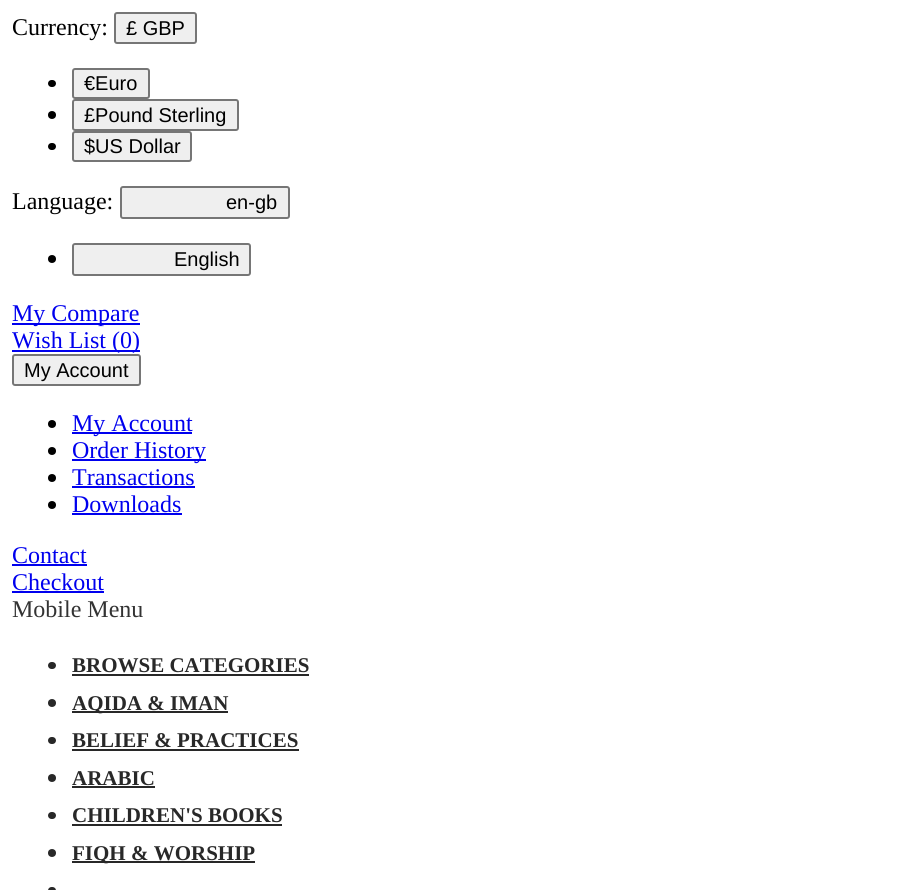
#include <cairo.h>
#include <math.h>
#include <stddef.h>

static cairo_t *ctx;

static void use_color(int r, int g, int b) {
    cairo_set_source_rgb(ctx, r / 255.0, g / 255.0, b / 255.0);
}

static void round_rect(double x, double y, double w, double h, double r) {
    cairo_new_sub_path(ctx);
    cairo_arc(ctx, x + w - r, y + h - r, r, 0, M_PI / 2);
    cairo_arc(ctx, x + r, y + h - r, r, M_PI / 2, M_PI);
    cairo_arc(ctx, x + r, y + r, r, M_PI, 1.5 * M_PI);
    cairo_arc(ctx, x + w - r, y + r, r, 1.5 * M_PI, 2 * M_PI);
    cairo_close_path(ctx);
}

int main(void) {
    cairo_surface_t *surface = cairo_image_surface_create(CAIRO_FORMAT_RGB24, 920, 890);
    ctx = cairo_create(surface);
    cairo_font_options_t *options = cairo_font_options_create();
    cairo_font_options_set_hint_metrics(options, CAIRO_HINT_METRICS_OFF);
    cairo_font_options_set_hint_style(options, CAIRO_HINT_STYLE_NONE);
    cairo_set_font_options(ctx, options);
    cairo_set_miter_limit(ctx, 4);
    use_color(255, 255, 255);
    cairo_paint(ctx);
    cairo_select_font_face(ctx, "Liberation Serif", CAIRO_FONT_SLANT_NORMAL, CAIRO_FONT_WEIGHT_NORMAL);
    cairo_set_font_size(ctx, 24);
    use_color(0, 0, 0);
    cairo_move_to(ctx, 12, 35);
    cairo_show_text(ctx, "Currency:");
    use_color(239, 239, 239);
    round_rect(115, 13, 81, 30, 2);
    cairo_fill_preserve(ctx);
    use_color(118, 118, 118);
    cairo_stroke(ctx);
    cairo_select_font_face(ctx, "Liberation Sans", CAIRO_FONT_SLANT_NORMAL, CAIRO_FONT_WEIGHT_NORMAL);
    cairo_set_font_size(ctx, 20);
    use_color(0, 0, 0);
    cairo_move_to(ctx, 126, 35);
    cairo_show_text(ctx, "£ GBP");
    round_rect(48, 80, 8, 7, 3.5);
    cairo_fill(ctx);
    use_color(239, 239, 239);
    round_rect(73, 69, 76, 29, 2);
    cairo_fill_preserve(ctx);
    use_color(118, 118, 118);
    cairo_stroke(ctx);
    use_color(0, 0, 0);
    cairo_move_to(ctx, 84, 90);
    cairo_show_text(ctx, "€Euro");
    cairo_new_path(ctx);
    cairo_arc(ctx, 52, 115, 4, 0, 2 * M_PI);
    cairo_fill(ctx);
    use_color(239, 239, 239);
    round_rect(73, 100, 165, 30, 2);
    cairo_fill_preserve(ctx);
    use_color(118, 118, 118);
    cairo_stroke(ctx);
    use_color(0, 0, 0);
    cairo_move_to(ctx, 84, 122);
    cairo_show_text(ctx, "£Pound Sterling");
    round_rect(48, 143, 8, 7, 3.5);
    cairo_fill(ctx);
    use_color(239, 239, 239);
    round_rect(73, 132, 118, 29, 2);
    cairo_fill_preserve(ctx);
    use_color(118, 118, 118);
    cairo_stroke(ctx);
    use_color(0, 0, 0);
    cairo_move_to(ctx, 84, 153);
    cairo_show_text(ctx, "$US Dollar");
    cairo_select_font_face(ctx, "Liberation Serif", CAIRO_FONT_SLANT_NORMAL, CAIRO_FONT_WEIGHT_NORMAL);
    cairo_set_font_size(ctx, 24);
    cairo_move_to(ctx, 12, 209);
    cairo_show_text(ctx, "Language:");
    use_color(239, 239, 239);
    round_rect(121, 187, 168, 31, 2);
    cairo_fill_preserve(ctx);
    use_color(118, 118, 118);
    cairo_stroke(ctx);
    cairo_select_font_face(ctx, "Liberation Sans", CAIRO_FONT_SLANT_NORMAL, CAIRO_FONT_WEIGHT_NORMAL);
    cairo_set_font_size(ctx, 20);
    use_color(0, 0, 0);
    cairo_move_to(ctx, 226, 209);
    cairo_show_text(ctx, "en-gb");
    cairo_new_path(ctx);
    cairo_arc(ctx, 52, 259, 4, 0, 2 * M_PI);
    cairo_fill(ctx);
    use_color(239, 239, 239);
    round_rect(73, 244, 177, 31, 2);
    cairo_fill_preserve(ctx);
    use_color(118, 118, 118);
    cairo_stroke(ctx);
    use_color(0, 0, 0);
    cairo_move_to(ctx, 174, 266);
    cairo_show_text(ctx, "English");
    use_color(0, 0, 238);
    cairo_rectangle(ctx, 12, 323, 128, 2);
    cairo_fill(ctx);
    cairo_select_font_face(ctx, "Liberation Serif", CAIRO_FONT_SLANT_NORMAL, CAIRO_FONT_WEIGHT_NORMAL);
    cairo_set_font_size(ctx, 24);
    cairo_move_to(ctx, 12, 321);
    cairo_show_text(ctx, "My Compare");
    cairo_rectangle(ctx, 12, 350, 128, 2);
    cairo_fill(ctx);
    cairo_move_to(ctx, 12, 348);
    cairo_show_text(ctx, "Wish List (0)");
    use_color(239, 239, 239);
    round_rect(13, 355, 127, 30, 2);
    cairo_fill_preserve(ctx);
    use_color(118, 118, 118);
    cairo_stroke(ctx);
    cairo_select_font_face(ctx, "Liberation Sans", CAIRO_FONT_SLANT_NORMAL, CAIRO_FONT_WEIGHT_NORMAL);
    cairo_set_font_size(ctx, 20);
    use_color(0, 0, 0);
    cairo_move_to(ctx, 24, 377);
    cairo_show_text(ctx, "My Account");
    cairo_new_path(ctx);
    cairo_arc(ctx, 52, 424, 4, 0, 2 * M_PI);
    cairo_fill(ctx);
    use_color(0, 0, 238);
    cairo_rectangle(ctx, 72, 432, 120, 2);
    cairo_fill(ctx);
    cairo_select_font_face(ctx, "Liberation Serif", CAIRO_FONT_SLANT_NORMAL, CAIRO_FONT_WEIGHT_NORMAL);
    cairo_set_font_size(ctx, 24);
    cairo_move_to(ctx, 72, 431);
    cairo_show_text(ctx, "My Account");
    use_color(0, 0, 0);
    cairo_new_path(ctx);
    cairo_arc(ctx, 52, 451, 4, 0, 2 * M_PI);
    cairo_fill(ctx);
    use_color(0, 0, 238);
    cairo_rectangle(ctx, 72, 459, 134, 2);
    cairo_fill(ctx);
    cairo_move_to(ctx, 72, 458);
    cairo_show_text(ctx, "Order History");
    use_color(0, 0, 0);
    cairo_new_path(ctx);
    cairo_arc(ctx, 52, 478, 4, 0, 2 * M_PI);
    cairo_fill(ctx);
    use_color(0, 0, 238);
    cairo_move_to(ctx, 72, 485);
    cairo_show_text(ctx, "Transactions");
    cairo_rectangle(ctx, 72, 486, 123, 2);
    cairo_fill(ctx);
    use_color(0, 0, 0);
    cairo_arc(ctx, 52, 505, 4, 0, 2 * M_PI);
    cairo_fill(ctx);
    use_color(0, 0, 238);
    cairo_move_to(ctx, 72, 512);
    cairo_show_text(ctx, "Downloads");
    cairo_rectangle(ctx, 72, 513, 110, 2);
    cairo_fill(ctx);
    cairo_move_to(ctx, 12, 563);
    cairo_show_text(ctx, "Contact");
    cairo_rectangle(ctx, 12, 564, 75, 2);
    cairo_fill(ctx);
    cairo_move_to(ctx, 12, 590);
    cairo_show_text(ctx, "Checkout");
    cairo_rectangle(ctx, 12, 591, 92, 2);
    cairo_fill(ctx);
    use_color(51, 51, 51);
    cairo_move_to(ctx, 12, 617);
    cairo_show_text(ctx, "Mobile Menu");
    use_color(40, 40, 40);
    round_rect(48, 662, 8, 7, 3.5);
    cairo_fill(ctx);
    cairo_select_font_face(ctx, "Liberation Serif", CAIRO_FONT_SLANT_NORMAL, CAIRO_FONT_WEIGHT_BOLD);
    cairo_set_font_size(ctx, 21);
    cairo_move_to(ctx, 72, 672);
    cairo_show_text(ctx, "BROWSE CATEGORIES");
    cairo_rectangle(ctx, 72, 674, 237, 2);
    cairo_fill(ctx);
    cairo_arc(ctx, 52, 703, 4, 0, 2 * M_PI);
    cairo_fill(ctx);
    cairo_rectangle(ctx, 72, 711, 156, 2);
    cairo_fill(ctx);
    cairo_move_to(ctx, 72, 710);
    cairo_show_text(ctx, "AQIDA & IMAN");
    round_rect(48, 737, 8, 7, 3.5);
    cairo_fill(ctx);
    cairo_move_to(ctx, 72, 747);
    cairo_show_text(ctx, "BELIEF & PRACTICES");
    cairo_rectangle(ctx, 72, 749, 227, 2);
    cairo_fill(ctx);
    cairo_arc(ctx, 52, 778, 4, 0, 2 * M_PI);
    cairo_fill(ctx);
    cairo_move_to(ctx, 72, 785);
    cairo_show_text(ctx, "ARABIC");
    cairo_rectangle(ctx, 72, 786, 83, 2);
    cairo_fill(ctx);
    round_rect(48, 812, 8, 7, 3.5);
    cairo_fill(ctx);
    cairo_move_to(ctx, 72, 822);
    cairo_show_text(ctx, "CHILDREN'S BOOKS");
    cairo_rectangle(ctx, 72, 824, 210, 2);
    cairo_fill(ctx);
    cairo_arc(ctx, 52, 853, 4, 0, 2 * M_PI);
    cairo_fill(ctx);
    cairo_rectangle(ctx, 72, 861, 183, 2);
    cairo_fill(ctx);
    cairo_move_to(ctx, 72, 860);
    cairo_show_text(ctx, "FIQH & WORSHIP");
    round_rect(48, 887, 8, 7, 3.5);
    cairo_fill(ctx);
    cairo_surface_write_to_png(surface, "result.png");
    cairo_font_options_destroy(options);
    cairo_destroy(ctx);
    cairo_surface_destroy(surface);
    return 0;
}
